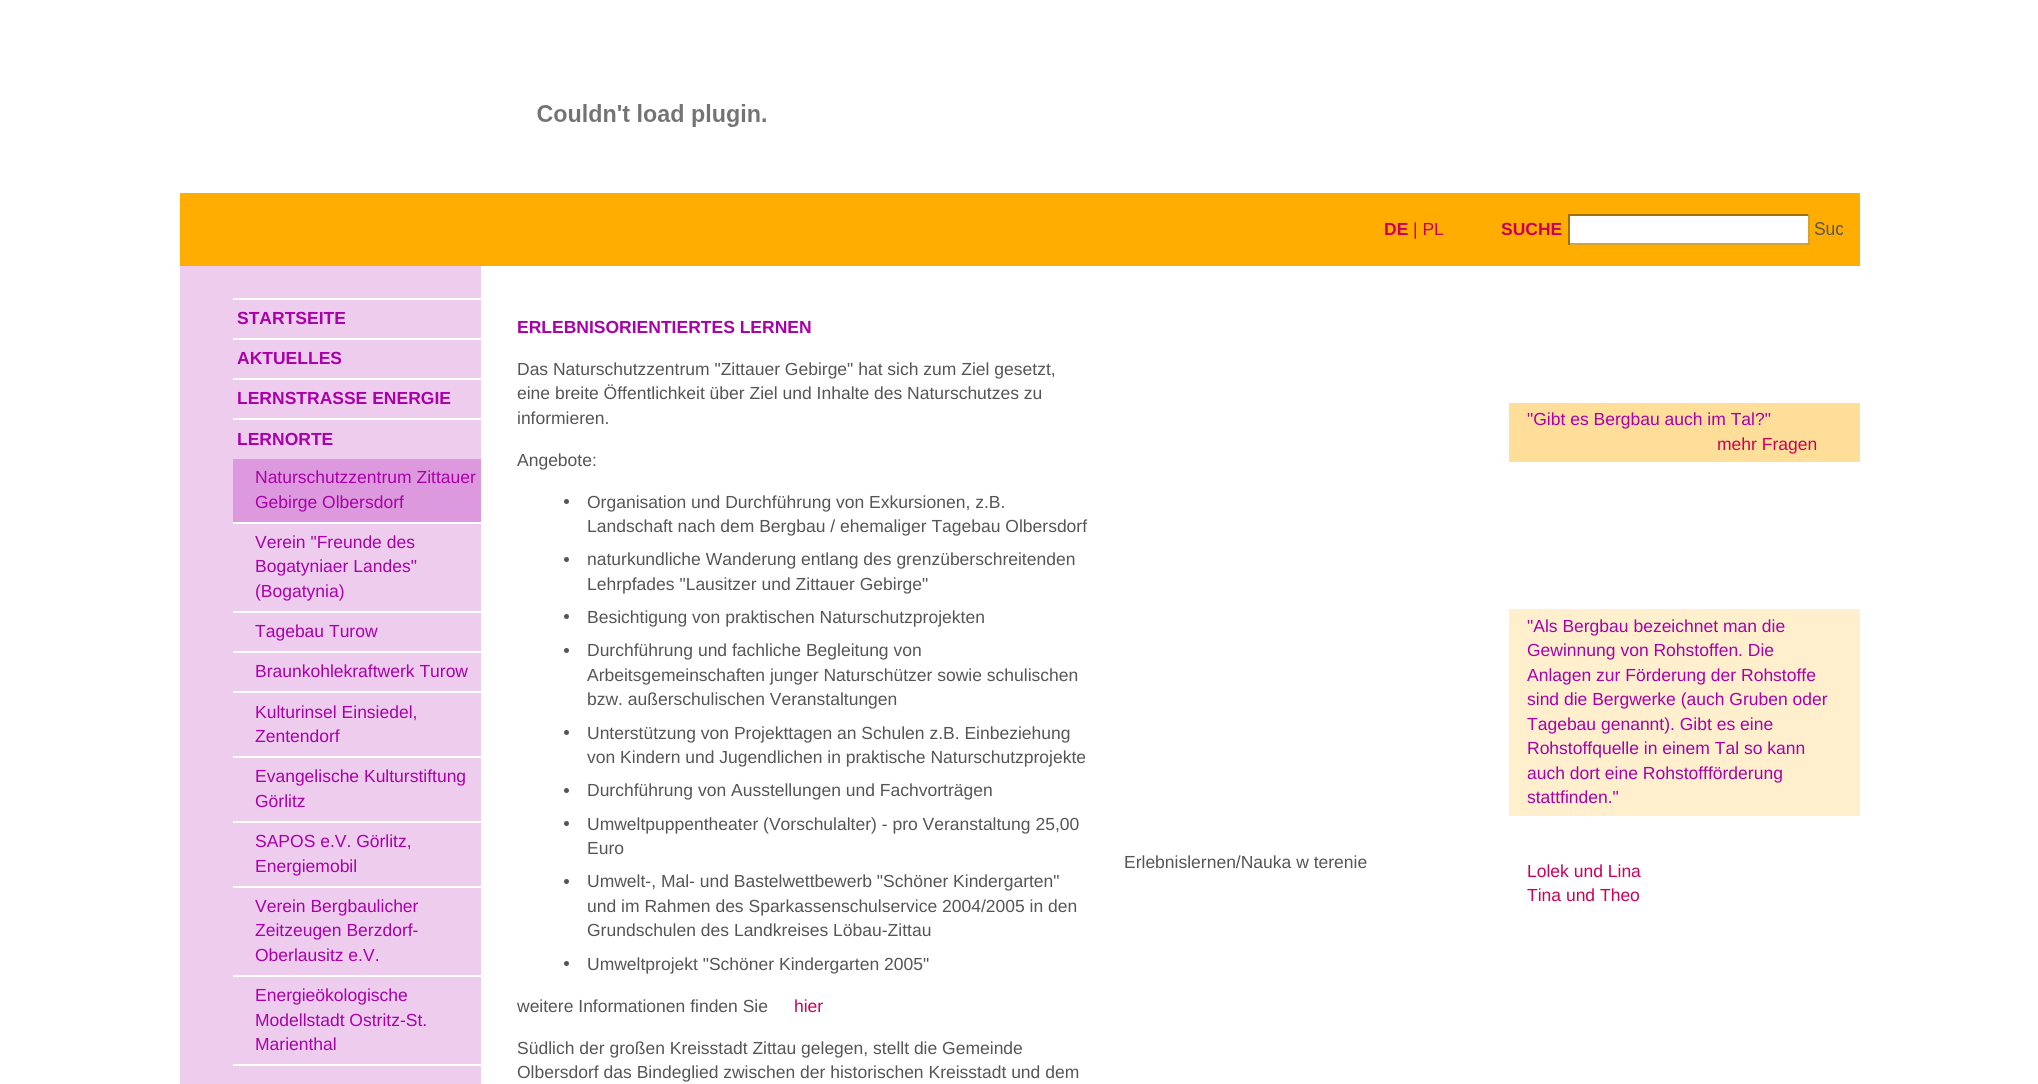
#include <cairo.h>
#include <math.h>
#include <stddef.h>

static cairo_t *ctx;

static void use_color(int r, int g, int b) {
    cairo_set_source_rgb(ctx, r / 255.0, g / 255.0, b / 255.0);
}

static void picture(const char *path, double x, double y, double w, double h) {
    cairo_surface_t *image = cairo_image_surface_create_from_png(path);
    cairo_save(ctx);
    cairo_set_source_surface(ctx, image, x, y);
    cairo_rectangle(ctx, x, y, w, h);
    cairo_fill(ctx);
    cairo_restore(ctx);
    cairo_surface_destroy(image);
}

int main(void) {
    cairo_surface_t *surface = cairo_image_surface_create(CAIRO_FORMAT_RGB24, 2038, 1084);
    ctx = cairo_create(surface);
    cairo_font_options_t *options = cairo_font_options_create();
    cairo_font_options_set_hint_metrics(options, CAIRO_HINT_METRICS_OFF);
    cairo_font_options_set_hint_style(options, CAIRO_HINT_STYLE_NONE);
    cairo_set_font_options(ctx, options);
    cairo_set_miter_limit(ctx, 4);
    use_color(255, 255, 255);
    cairo_paint(ctx);
    picture("img1.png", 537, 104, 229, 23);
    use_color(255, 173, 0);
    cairo_rectangle(ctx, 180, 193, 1680, 73);
    cairo_fill(ctx);
    cairo_select_font_face(ctx, "Liberation Sans", CAIRO_FONT_SLANT_NORMAL, CAIRO_FONT_WEIGHT_BOLD);
    cairo_set_font_size(ctx, 17.5);
    use_color(204, 0, 87);
    cairo_move_to(ctx, 1384, 235);
    cairo_show_text(ctx, "DE");
    cairo_select_font_face(ctx, "Liberation Sans", CAIRO_FONT_SLANT_NORMAL, CAIRO_FONT_WEIGHT_NORMAL);
    cairo_move_to(ctx, 1413, 235);
    cairo_show_text(ctx, "| PL");
    cairo_select_font_face(ctx, "Liberation Sans", CAIRO_FONT_SLANT_NORMAL, CAIRO_FONT_WEIGHT_BOLD);
    cairo_move_to(ctx, 1501, 235);
    cairo_show_text(ctx, "SUCHE");
    use_color(255, 255, 255);
    cairo_rectangle(ctx, 1570, 216, 238, 27);
    cairo_fill(ctx);
    use_color(162, 111, 1);
    cairo_rectangle(ctx, 1568, 214, 242, 2);
    cairo_fill(ctx);
    use_color(214, 162, 53);
    cairo_rectangle(ctx, 1808, 214, 2, 31);
    cairo_fill(ctx);
    cairo_rectangle(ctx, 1568, 243, 242, 2);
    cairo_fill(ctx);
    use_color(162, 111, 1);
    cairo_rectangle(ctx, 1568, 214, 2, 31);
    cairo_fill(ctx);
    picture("img2.png", 1815, 222, 28, 13);
    use_color(238, 204, 238);
    cairo_rectangle(ctx, 180, 266, 301, 818);
    cairo_fill(ctx);
    use_color(255, 255, 255);
    cairo_rectangle(ctx, 233, 298, 248, 2);
    cairo_fill(ctx);
    cairo_rectangle(ctx, 233, 338, 248, 2);
    cairo_fill(ctx);
    use_color(169, 0, 169);
    cairo_move_to(ctx, 237, 324);
    cairo_show_text(ctx, "STARTSEITE");
    use_color(255, 255, 255);
    cairo_rectangle(ctx, 233, 378, 248, 2);
    cairo_fill(ctx);
    use_color(169, 0, 169);
    cairo_move_to(ctx, 237, 364);
    cairo_show_text(ctx, "AKTUELLES");
    use_color(255, 255, 255);
    cairo_rectangle(ctx, 233, 418, 248, 2);
    cairo_fill(ctx);
    use_color(169, 0, 169);
    cairo_move_to(ctx, 237, 404);
    cairo_show_text(ctx, "LERNSTRASSE ENERGIE");
    cairo_move_to(ctx, 237, 445);
    cairo_show_text(ctx, "LERNORTE");
    use_color(221, 153, 221);
    cairo_rectangle(ctx, 233, 459, 248, 63);
    cairo_fill(ctx);
    use_color(255, 255, 255);
    cairo_rectangle(ctx, 233, 522, 248, 2);
    cairo_fill(ctx);
    cairo_select_font_face(ctx, "Liberation Sans", CAIRO_FONT_SLANT_NORMAL, CAIRO_FONT_WEIGHT_NORMAL);
    use_color(169, 0, 169);
    cairo_move_to(ctx, 255, 483);
    cairo_show_text(ctx, "Naturschutzzentrum Zittauer");
    cairo_move_to(ctx, 255, 508);
    cairo_show_text(ctx, "Gebirge Olbersdorf");
    use_color(255, 255, 255);
    cairo_rectangle(ctx, 233, 611, 248, 2);
    cairo_fill(ctx);
    use_color(169, 0, 169);
    cairo_move_to(ctx, 255, 548);
    cairo_show_text(ctx, "Verein \"Freunde des");
    cairo_move_to(ctx, 255, 572);
    cairo_show_text(ctx, "Bogatyniaer Landes\"");
    cairo_move_to(ctx, 255, 597);
    cairo_show_text(ctx, "(Bogatynia)");
    use_color(255, 255, 255);
    cairo_rectangle(ctx, 233, 651, 248, 2);
    cairo_fill(ctx);
    use_color(169, 0, 169);
    cairo_move_to(ctx, 255, 637);
    cairo_show_text(ctx, "Tagebau Turow");
    use_color(255, 255, 255);
    cairo_rectangle(ctx, 233, 691, 248, 2);
    cairo_fill(ctx);
    use_color(169, 0, 169);
    cairo_move_to(ctx, 255, 677);
    cairo_show_text(ctx, "Braunkohlekraftwerk Turow");
    use_color(255, 255, 255);
    cairo_rectangle(ctx, 233, 756, 248, 2);
    cairo_fill(ctx);
    use_color(169, 0, 169);
    cairo_move_to(ctx, 255, 718);
    cairo_show_text(ctx, "Kulturinsel Einsiedel,");
    cairo_move_to(ctx, 255, 742);
    cairo_show_text(ctx, "Zentendorf");
    use_color(255, 255, 255);
    cairo_rectangle(ctx, 233, 821, 248, 2);
    cairo_fill(ctx);
    use_color(169, 0, 169);
    cairo_move_to(ctx, 255, 782);
    cairo_show_text(ctx, "Evangelische Kulturstiftung");
    cairo_move_to(ctx, 255, 807);
    cairo_show_text(ctx, "Görlitz");
    use_color(255, 255, 255);
    cairo_rectangle(ctx, 233, 886, 248, 2);
    cairo_fill(ctx);
    use_color(169, 0, 169);
    cairo_move_to(ctx, 255, 847);
    cairo_show_text(ctx, "SAPOS e.V. Görlitz,");
    cairo_move_to(ctx, 255, 872);
    cairo_show_text(ctx, "Energiemobil");
    use_color(255, 255, 255);
    cairo_rectangle(ctx, 233, 975, 248, 2);
    cairo_fill(ctx);
    use_color(169, 0, 169);
    cairo_move_to(ctx, 255, 912);
    cairo_show_text(ctx, "Verein Bergbaulicher");
    cairo_move_to(ctx, 255, 936);
    cairo_show_text(ctx, "Zeitzeugen Berzdorf-");
    cairo_move_to(ctx, 255, 961);
    cairo_show_text(ctx, "Oberlausitz e.V.");
    use_color(255, 255, 255);
    cairo_rectangle(ctx, 233, 1064, 248, 2);
    cairo_fill(ctx);
    use_color(169, 0, 169);
    cairo_move_to(ctx, 255, 1001);
    cairo_show_text(ctx, "Energieökologische");
    cairo_move_to(ctx, 255, 1026);
    cairo_show_text(ctx, "Modellstadt Ostritz-St.");
    cairo_move_to(ctx, 255, 1050);
    cairo_show_text(ctx, "Marienthal");
    cairo_select_font_face(ctx, "Liberation Sans", CAIRO_FONT_SLANT_NORMAL, CAIRO_FONT_WEIGHT_BOLD);
    cairo_move_to(ctx, 517, 333);
    cairo_show_text(ctx, "ERLEBNISORIENTIERTES LERNEN");
    cairo_select_font_face(ctx, "Liberation Sans", CAIRO_FONT_SLANT_NORMAL, CAIRO_FONT_WEIGHT_NORMAL);
    use_color(85, 85, 85);
    cairo_move_to(ctx, 517, 375);
    cairo_show_text(ctx, "Das Naturschutzzentrum \"Zittauer Gebirge\" hat sich zum Ziel gesetzt,");
    cairo_move_to(ctx, 517, 399);
    cairo_show_text(ctx, "eine breite Öffentlichkeit über Ziel und Inhalte des Naturschutzes zu");
    cairo_move_to(ctx, 517, 424);
    cairo_show_text(ctx, "informieren.");
    cairo_move_to(ctx, 517, 466);
    cairo_show_text(ctx, "Angebote:");
    cairo_new_path(ctx);
    cairo_arc(ctx, 566.5, 501.5, 2.5, 0, 2 * M_PI);
    cairo_fill(ctx);
    cairo_move_to(ctx, 587, 508);
    cairo_show_text(ctx, "Organisation und Durchführung von Exkursionen, z.B.");
    cairo_move_to(ctx, 587, 532);
    cairo_show_text(ctx, "Landschaft nach dem Bergbau / ehemaliger Tagebau Olbersdorf");
    cairo_new_path(ctx);
    cairo_arc(ctx, 566.5, 559.5, 2.5, 0, 2 * M_PI);
    cairo_fill(ctx);
    cairo_move_to(ctx, 587, 565);
    cairo_show_text(ctx, "naturkundliche Wanderung entlang des grenzüberschreitenden");
    cairo_move_to(ctx, 587, 590);
    cairo_show_text(ctx, "Lehrpfades \"Lausitzer und Zittauer Gebirge\"");
    cairo_new_path(ctx);
    cairo_arc(ctx, 566.5, 616.5, 2.5, 0, 2 * M_PI);
    cairo_fill(ctx);
    cairo_move_to(ctx, 587, 623);
    cairo_show_text(ctx, "Besichtigung von praktischen Naturschutzprojekten");
    cairo_new_path(ctx);
    cairo_arc(ctx, 566.5, 650.5, 2.5, 0, 2 * M_PI);
    cairo_fill(ctx);
    cairo_move_to(ctx, 587, 656);
    cairo_show_text(ctx, "Durchführung und fachliche Begleitung von");
    cairo_move_to(ctx, 587, 681);
    cairo_show_text(ctx, "Arbeitsgemeinschaften junger Naturschützer sowie schulischen");
    cairo_move_to(ctx, 587, 705);
    cairo_show_text(ctx, "bzw. außerschulischen Veranstaltungen");
    cairo_new_path(ctx);
    cairo_arc(ctx, 566.5, 732.5, 2.5, 0, 2 * M_PI);
    cairo_fill(ctx);
    cairo_move_to(ctx, 587, 739);
    cairo_show_text(ctx, "Unterstützung von Projekttagen an Schulen z.B. Einbeziehung");
    cairo_move_to(ctx, 587, 763);
    cairo_show_text(ctx, "von Kindern und Jugendlichen in praktische Naturschutzprojekte");
    cairo_new_path(ctx);
    cairo_arc(ctx, 566.5, 790.5, 2.5, 0, 2 * M_PI);
    cairo_fill(ctx);
    cairo_move_to(ctx, 587, 796);
    cairo_show_text(ctx, "Durchführung von Ausstellungen und Fachvorträgen");
    cairo_new_path(ctx);
    cairo_arc(ctx, 566.5, 823.5, 2.5, 0, 2 * M_PI);
    cairo_fill(ctx);
    cairo_move_to(ctx, 587, 830);
    cairo_show_text(ctx, "Umweltpuppentheater (Vorschulalter) - pro Veranstaltung 25,00");
    cairo_move_to(ctx, 587, 854);
    cairo_show_text(ctx, "Euro");
    cairo_new_path(ctx);
    cairo_arc(ctx, 566.5, 881.5, 2.5, 0, 2 * M_PI);
    cairo_fill(ctx);
    cairo_move_to(ctx, 587, 887);
    cairo_show_text(ctx, "Umwelt-, Mal- und Bastelwettbewerb \"Schöner Kindergarten\"");
    cairo_move_to(ctx, 587, 912);
    cairo_show_text(ctx, "und im Rahmen des Sparkassenschulservice 2004/2005 in den");
    cairo_move_to(ctx, 587, 936);
    cairo_show_text(ctx, "Grundschulen des Landkreises Löbau-Zittau");
    cairo_new_path(ctx);
    cairo_arc(ctx, 566.5, 963.5, 2.5, 0, 2 * M_PI);
    cairo_fill(ctx);
    cairo_move_to(ctx, 587, 970);
    cairo_show_text(ctx, "Umweltprojekt \"Schöner Kindergarten 2005\"");
    cairo_move_to(ctx, 517, 1012);
    cairo_show_text(ctx, "weitere Informationen finden Sie");
    use_color(204, 0, 87);
    cairo_move_to(ctx, 794, 1012);
    cairo_show_text(ctx, "hier");
    use_color(85, 85, 85);
    cairo_move_to(ctx, 517, 1054);
    cairo_show_text(ctx, "Südlich der großen Kreisstadt Zittau gelegen, stellt die Gemeinde");
    cairo_move_to(ctx, 517, 1078);
    cairo_show_text(ctx, "Olbersdorf das Bindeglied zwischen der historischen Kreisstadt und dem");
    cairo_move_to(ctx, 1124, 868);
    cairo_show_text(ctx, "Erlebnislernen/Nauka w terenie");
    use_color(255, 222, 153);
    cairo_rectangle(ctx, 1509, 403, 351, 59);
    cairo_fill(ctx);
    use_color(169, 0, 169);
    cairo_move_to(ctx, 1527, 425);
    cairo_show_text(ctx, "\"Gibt es Bergbau auch im Tal?\"");
    use_color(204, 0, 87);
    cairo_move_to(ctx, 1717, 450);
    cairo_show_text(ctx, "mehr Fragen");
    use_color(255, 239, 204);
    cairo_rectangle(ctx, 1509, 609, 351, 207);
    cairo_fill(ctx);
    use_color(169, 0, 169);
    cairo_move_to(ctx, 1527, 632);
    cairo_show_text(ctx, "\"Als Bergbau bezeichnet man die");
    cairo_move_to(ctx, 1527, 656);
    cairo_show_text(ctx, "Gewinnung von Rohstoffen. Die");
    cairo_move_to(ctx, 1527, 681);
    cairo_show_text(ctx, "Anlagen zur Förderung der Rohstoffe");
    cairo_move_to(ctx, 1527, 705);
    cairo_show_text(ctx, "sind die Bergwerke (auch Gruben oder");
    cairo_move_to(ctx, 1527, 730);
    cairo_show_text(ctx, "Tagebau genannt). Gibt es eine");
    cairo_move_to(ctx, 1527, 754);
    cairo_show_text(ctx, "Rohstoffquelle in einem Tal so kann");
    cairo_move_to(ctx, 1527, 779);
    cairo_show_text(ctx, "auch dort eine Rohstoffförderung");
    cairo_move_to(ctx, 1527, 803);
    cairo_show_text(ctx, "stattfinden.\"");
    use_color(204, 0, 87);
    cairo_move_to(ctx, 1527, 877);
    cairo_show_text(ctx, "Lolek und Lina");
    cairo_move_to(ctx, 1527, 901);
    cairo_show_text(ctx, "Tina und Theo");
    cairo_surface_write_to_png(surface, "result.png");
    cairo_font_options_destroy(options);
    cairo_destroy(ctx);
    cairo_surface_destroy(surface);
    return 0;
}
